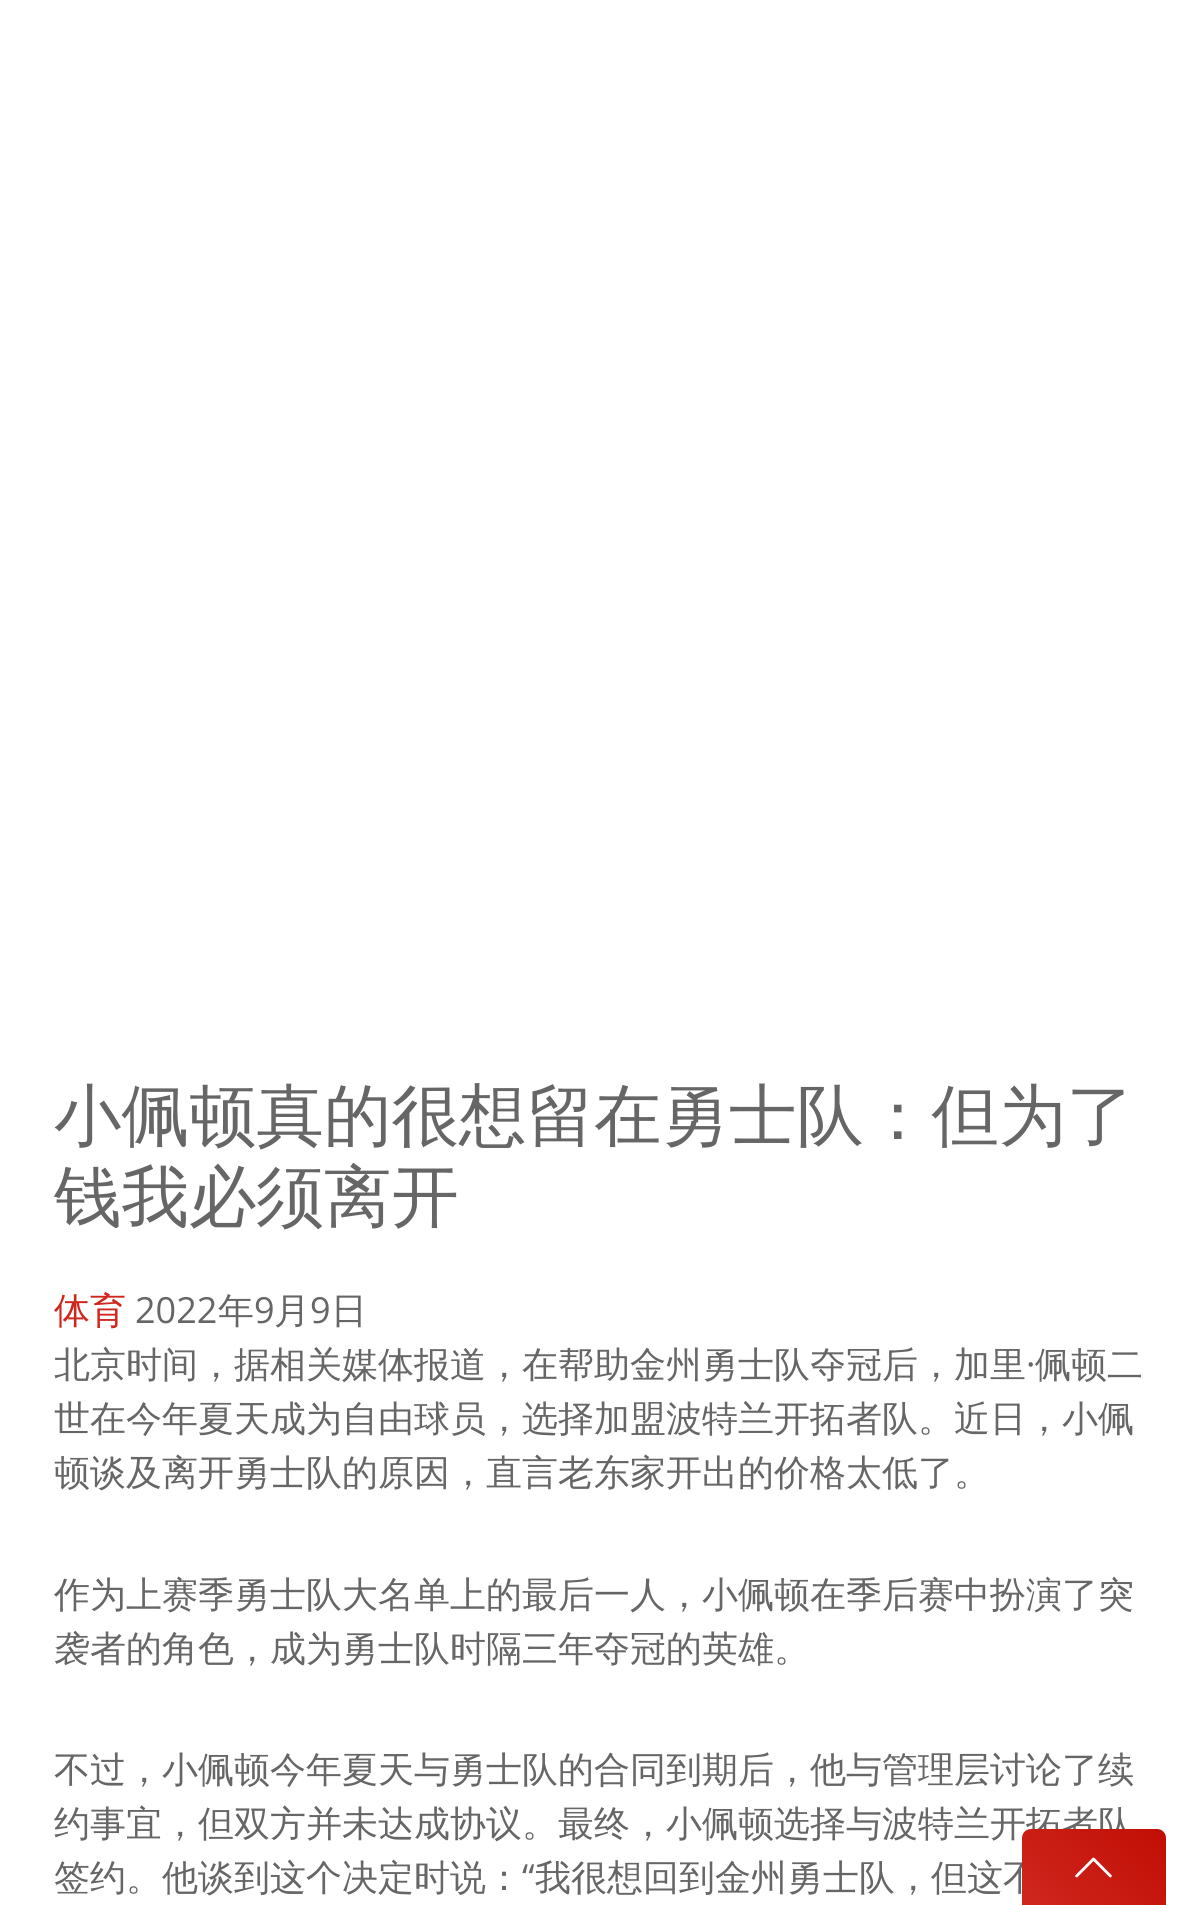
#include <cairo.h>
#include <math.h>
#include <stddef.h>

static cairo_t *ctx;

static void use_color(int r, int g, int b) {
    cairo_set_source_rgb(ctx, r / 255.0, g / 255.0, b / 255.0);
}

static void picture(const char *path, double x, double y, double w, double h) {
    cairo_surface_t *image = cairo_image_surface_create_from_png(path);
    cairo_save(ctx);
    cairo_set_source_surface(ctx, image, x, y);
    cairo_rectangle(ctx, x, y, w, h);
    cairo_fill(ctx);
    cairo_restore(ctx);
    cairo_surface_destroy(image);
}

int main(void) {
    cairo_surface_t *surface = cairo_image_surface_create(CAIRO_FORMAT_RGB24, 1198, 1905);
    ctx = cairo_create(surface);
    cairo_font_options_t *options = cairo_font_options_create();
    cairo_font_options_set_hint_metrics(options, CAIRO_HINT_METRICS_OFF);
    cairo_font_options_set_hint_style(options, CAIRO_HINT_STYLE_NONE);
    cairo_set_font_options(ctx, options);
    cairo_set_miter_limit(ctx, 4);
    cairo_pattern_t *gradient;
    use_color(255, 255, 255);
    cairo_paint(ctx);
    cairo_select_font_face(ctx, "WenQuanYi Zen Hei Medium", CAIRO_FONT_SLANT_NORMAL, CAIRO_FONT_WEIGHT_NORMAL);
    cairo_set_font_size(ctx, 67.5);
    use_color(102, 102, 102);
    cairo_move_to(ctx, 54, 1139);
    cairo_show_text(ctx, "小佩顿真的很想留在勇士队：但为了");
    cairo_move_to(ctx, 54, 1220);
    cairo_show_text(ctx, "钱我必须离开");
    cairo_set_font_size(ctx, 36);
    use_color(207, 39, 30);
    cairo_move_to(ctx, 54, 1323);
    cairo_show_text(ctx, "体育");
    cairo_select_font_face(ctx, "Open Sans", CAIRO_FONT_SLANT_NORMAL, CAIRO_FONT_WEIGHT_NORMAL);
    use_color(102, 102, 102);
    cairo_move_to(ctx, 135, 1323);
    cairo_show_text(ctx, "2022");
    cairo_select_font_face(ctx, "WenQuanYi Zen Hei Medium", CAIRO_FONT_SLANT_NORMAL, CAIRO_FONT_WEIGHT_NORMAL);
    cairo_move_to(ctx, 218, 1323);
    cairo_show_text(ctx, "年");
    cairo_select_font_face(ctx, "Open Sans", CAIRO_FONT_SLANT_NORMAL, CAIRO_FONT_WEIGHT_NORMAL);
    cairo_move_to(ctx, 254, 1323);
    cairo_show_text(ctx, "9");
    cairo_select_font_face(ctx, "WenQuanYi Zen Hei Medium", CAIRO_FONT_SLANT_NORMAL, CAIRO_FONT_WEIGHT_NORMAL);
    cairo_move_to(ctx, 274, 1323);
    cairo_show_text(ctx, "月");
    cairo_select_font_face(ctx, "Open Sans", CAIRO_FONT_SLANT_NORMAL, CAIRO_FONT_WEIGHT_NORMAL);
    cairo_move_to(ctx, 310, 1323);
    cairo_show_text(ctx, "9");
    cairo_select_font_face(ctx, "WenQuanYi Zen Hei Medium", CAIRO_FONT_SLANT_NORMAL, CAIRO_FONT_WEIGHT_NORMAL);
    cairo_move_to(ctx, 331, 1323);
    cairo_show_text(ctx, "日");
    cairo_move_to(ctx, 54, 1377);
    cairo_show_text(ctx, "北京时间，据相关媒体报道，在帮助金州勇士队夺冠后，加里");
    cairo_select_font_face(ctx, "Open Sans", CAIRO_FONT_SLANT_NORMAL, CAIRO_FONT_WEIGHT_NORMAL);
    cairo_move_to(ctx, 1026, 1377);
    cairo_show_text(ctx, "·");
    cairo_select_font_face(ctx, "WenQuanYi Zen Hei Medium", CAIRO_FONT_SLANT_NORMAL, CAIRO_FONT_WEIGHT_NORMAL);
    cairo_move_to(ctx, 1035, 1377);
    cairo_show_text(ctx, "佩顿二");
    cairo_move_to(ctx, 54, 1431);
    cairo_show_text(ctx, "世在今年夏天成为自由球员，选择加盟波特兰开拓者队。近日，小佩");
    cairo_move_to(ctx, 54, 1485);
    cairo_show_text(ctx, "顿谈及离开勇士队的原因，直言老东家开出的价格太低了。");
    cairo_move_to(ctx, 54, 1607);
    cairo_show_text(ctx, "作为上赛季勇士队大名单上的最后一人，小佩顿在季后赛中扮演了突");
    cairo_move_to(ctx, 54, 1661);
    cairo_show_text(ctx, "袭者的角色，成为勇士队时隔三年夺冠的英雄。");
    cairo_move_to(ctx, 54, 1782);
    cairo_show_text(ctx, "不过，小佩顿今年夏天与勇士队的合同到期后，他与管理层讨论了续");
    cairo_move_to(ctx, 54, 1836);
    cairo_show_text(ctx, "约事宜，但双方并未达成协议。最终，小佩顿选择与波特兰开拓者队");
    cairo_move_to(ctx, 54, 1890);
    cairo_show_text(ctx, "签约。他谈到这个决定时说：");
    cairo_select_font_face(ctx, "Open Sans", CAIRO_FONT_SLANT_NORMAL, CAIRO_FONT_WEIGHT_NORMAL);
    cairo_move_to(ctx, 522, 1890);
    cairo_show_text(ctx, "“");
    cairo_select_font_face(ctx, "WenQuanYi Zen Hei Medium", CAIRO_FONT_SLANT_NORMAL, CAIRO_FONT_WEIGHT_NORMAL);
    cairo_move_to(ctx, 535, 1890);
    cairo_show_text(ctx, "我很想回到金州勇士队，但这不");
    gradient = cairo_pattern_create_linear(1038, 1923, 1149, 1812);
    cairo_pattern_add_color_stop_rgba(gradient, 0, 0.812, 0.153, 0.118, 1);
    cairo_pattern_add_color_stop_rgba(gradient, 1, 0.757, 0.055, 0.016, 1);
    cairo_set_source(ctx, gradient);
    cairo_pattern_destroy(gradient);
    cairo_new_path(ctx);
    cairo_move_to(ctx, 1031, 1829);
    cairo_line_to(ctx, 1157, 1829);
    cairo_curve_to(ctx, 1162, 1829, 1166, 1833, 1166, 1838);
    cairo_line_to(ctx, 1166, 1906);
    cairo_line_to(ctx, 1022, 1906);
    cairo_line_to(ctx, 1022, 1838);
    cairo_curve_to(ctx, 1022, 1833, 1026, 1829, 1031, 1829);
    cairo_close_path(ctx);
    cairo_fill(ctx);
    picture("img1.png", 1075, 1857, 37, 21);
    cairo_surface_write_to_png(surface, "result.png");
    cairo_font_options_destroy(options);
    cairo_destroy(ctx);
    cairo_surface_destroy(surface);
    return 0;
}
